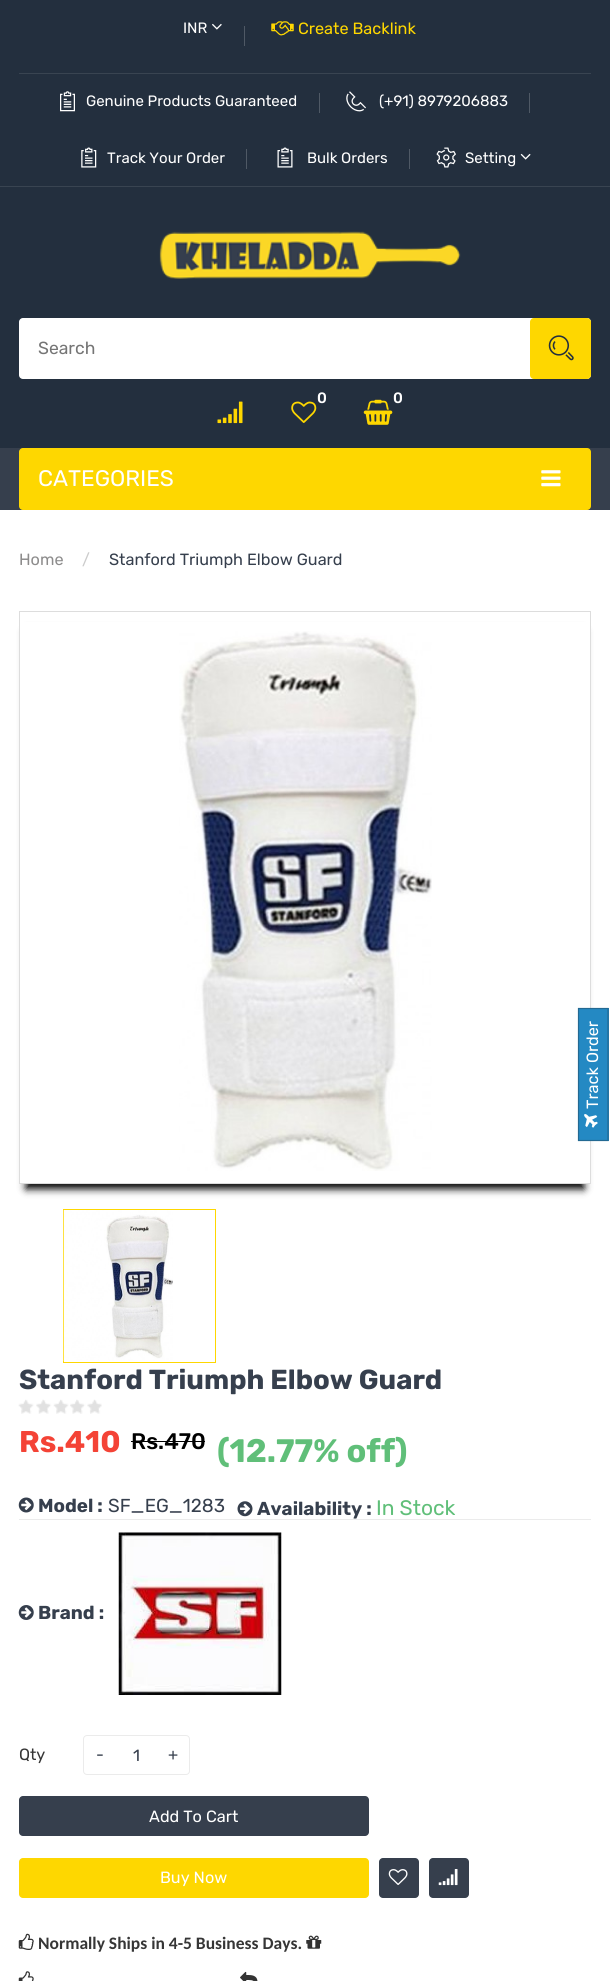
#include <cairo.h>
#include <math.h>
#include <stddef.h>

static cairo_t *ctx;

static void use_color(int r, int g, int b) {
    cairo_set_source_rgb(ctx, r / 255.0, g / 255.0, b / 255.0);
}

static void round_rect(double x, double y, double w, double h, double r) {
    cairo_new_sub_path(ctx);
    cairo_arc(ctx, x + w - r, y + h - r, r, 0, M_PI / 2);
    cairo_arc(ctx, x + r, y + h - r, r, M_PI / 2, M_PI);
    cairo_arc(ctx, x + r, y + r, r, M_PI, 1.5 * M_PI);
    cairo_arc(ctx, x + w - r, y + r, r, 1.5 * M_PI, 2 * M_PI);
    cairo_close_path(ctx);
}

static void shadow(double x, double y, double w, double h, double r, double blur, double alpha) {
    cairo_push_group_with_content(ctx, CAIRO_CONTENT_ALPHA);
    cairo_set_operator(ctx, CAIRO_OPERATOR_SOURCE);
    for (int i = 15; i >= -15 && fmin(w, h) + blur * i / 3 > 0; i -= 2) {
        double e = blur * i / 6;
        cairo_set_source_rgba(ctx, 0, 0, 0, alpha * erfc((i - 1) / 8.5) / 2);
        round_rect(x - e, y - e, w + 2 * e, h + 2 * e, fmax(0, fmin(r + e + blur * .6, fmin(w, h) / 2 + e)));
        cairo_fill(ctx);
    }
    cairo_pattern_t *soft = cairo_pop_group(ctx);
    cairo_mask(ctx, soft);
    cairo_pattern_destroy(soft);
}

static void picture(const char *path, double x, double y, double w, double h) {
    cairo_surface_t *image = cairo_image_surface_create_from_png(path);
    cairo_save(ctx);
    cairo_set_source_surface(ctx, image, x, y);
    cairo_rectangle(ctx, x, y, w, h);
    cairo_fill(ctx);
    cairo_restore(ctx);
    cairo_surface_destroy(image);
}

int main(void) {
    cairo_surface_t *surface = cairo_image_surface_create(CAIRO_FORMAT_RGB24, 610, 1981);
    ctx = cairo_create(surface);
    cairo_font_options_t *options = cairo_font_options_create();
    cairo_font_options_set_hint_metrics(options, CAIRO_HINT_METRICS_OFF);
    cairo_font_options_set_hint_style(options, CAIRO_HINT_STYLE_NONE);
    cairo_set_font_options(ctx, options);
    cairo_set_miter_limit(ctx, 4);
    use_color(255, 255, 255);
    cairo_paint(ctx);
    use_color(35, 47, 62);
    cairo_rectangle(ctx, 0, 0, 610, 448);
    cairo_fill(ctx);
    use_color(57, 68, 81);
    cairo_rectangle(ctx, 0, 186, 610, 1);
    cairo_fill(ctx);
    cairo_rectangle(ctx, 19, 73, 572, 1);
    cairo_fill(ctx);
    cairo_select_font_face(ctx, "Rubik", CAIRO_FONT_SLANT_NORMAL, CAIRO_FONT_WEIGHT_NORMAL);
    cairo_set_font_size(ctx, 15);
    use_color(255, 255, 255);
    cairo_move_to(ctx, 183, 33);
    cairo_show_text(ctx, "INR");
    picture("img1.png", 212, 23, 10, 7);
    use_color(79, 89, 101);
    cairo_rectangle(ctx, 244, 26, 1, 20);
    cairo_fill(ctx);
    picture("img2.png", 271, 21, 23, 15);
    cairo_set_font_size(ctx, 16.25);
    use_color(255, 215, 0);
    cairo_move_to(ctx, 298, 34);
    cairo_show_text(ctx, "Create Backlink");
    picture("img3.png", 60, 91, 15, 21);
    cairo_set_font_size(ctx, 15);
    use_color(255, 255, 255);
    cairo_move_to(ctx, 86, 106);
    cairo_show_text(ctx, "Genuine Products Guaranteed");
    use_color(79, 89, 101);
    cairo_rectangle(ctx, 319, 93, 1, 20);
    cairo_fill(ctx);
    picture("img4.png", 346, 91, 20, 21);
    use_color(255, 255, 255);
    cairo_move_to(ctx, 379, 106);
    cairo_show_text(ctx, "(+91) 8979206883");
    use_color(79, 89, 101);
    cairo_rectangle(ctx, 529, 93, 1, 20);
    cairo_fill(ctx);
    picture("img5.png", 81, 147, 16, 21);
    use_color(255, 255, 255);
    cairo_move_to(ctx, 107, 163);
    cairo_show_text(ctx, "Track Your Order");
    use_color(79, 89, 101);
    cairo_rectangle(ctx, 246, 149, 1, 20);
    cairo_fill(ctx);
    picture("img6.png", 277, 147, 16, 21);
    use_color(255, 255, 255);
    cairo_move_to(ctx, 307, 163);
    cairo_show_text(ctx, "Bulk Orders");
    use_color(79, 89, 101);
    cairo_rectangle(ctx, 409, 149, 1, 20);
    cairo_fill(ctx);
    picture("img7.png", 436, 147, 20, 21);
    use_color(255, 255, 255);
    cairo_move_to(ctx, 465, 163);
    cairo_show_text(ctx, "Setting");
    picture("img8.png", 520, 153, 11, 7);
    picture("img9.png", 159, 231, 302, 48);
    round_rect(19, 318, 572, 61, 4);
    cairo_fill(ctx);
    cairo_set_font_size(ctx, 17.5);
    use_color(117, 117, 117);
    cairo_move_to(ctx, 38, 354);
    cairo_show_text(ctx, "Search");
    use_color(254, 215, 0);
    round_rect(530, 318, 61, 61, 4);
    cairo_fill(ctx);
    picture("img10.png", 548, 335, 26, 26);
    cairo_select_font_face(ctx, "Rubik Medium", CAIRO_FONT_SLANT_NORMAL, CAIRO_FONT_WEIGHT_NORMAL);
    cairo_set_font_size(ctx, 15);
    use_color(255, 255, 255);
    cairo_move_to(ctx, 317, 403);
    cairo_show_text(ctx, "0");
    picture("img11.png", 291, 401, 26, 22);
    picture("img12.png", 363, 399, 30, 26);
    cairo_move_to(ctx, 393, 403);
    cairo_show_text(ctx, "0");
    picture("img13.png", 217, 401, 26, 23);
    use_color(54, 63, 77);
    cairo_rectangle(ctx, 0, 448, 610, 62);
    cairo_fill(ctx);
    use_color(254, 215, 0);
    round_rect(19, 448, 572, 62, 4);
    cairo_fill(ctx);
    cairo_select_font_face(ctx, "Rubik", CAIRO_FONT_SLANT_NORMAL, CAIRO_FONT_WEIGHT_NORMAL);
    cairo_set_font_size(ctx, 22.5);
    use_color(255, 255, 255);
    cairo_move_to(ctx, 38, 486);
    cairo_show_text(ctx, "CATEGORIES");
    picture("img14.png", 541, 470, 20, 17);
    cairo_set_font_size(ctx, 16.25);
    use_color(141, 140, 140);
    cairo_move_to(ctx, 19, 565);
    cairo_show_text(ctx, "Home");
    use_color(204, 204, 204);
    cairo_move_to(ctx, 82, 565);
    cairo_show_text(ctx, "/");
    use_color(54, 63, 77);
    cairo_move_to(ctx, 109, 565);
    cairo_show_text(ctx, "Stanford Triumph Elbow Guard");
    use_color(0, 0, 0);
    shadow(26, 631, 558, 558, 0, 4, 1);
    use_color(255, 255, 255);
    cairo_rectangle(ctx, 20, 622, 570, 561);
    cairo_fill(ctx);
    cairo_rectangle(ctx, 19.5, 611.5, 571, 572);
    use_color(221, 221, 221);
    cairo_set_line_width(ctx, 1);
    cairo_stroke(ctx);
    use_color(36, 137, 195);
    cairo_rectangle(ctx, 579, 1008, 30, 133);
    cairo_fill(ctx);
    cairo_new_path(ctx);
    cairo_move_to(ctx, 578.5, 1140.5);
    cairo_line_to(ctx, 578.5, 1008.5);
    cairo_line_to(ctx, 608, 1008.5);
    cairo_line_to(ctx, 608, 1140.5);
    cairo_close_path(ctx);
    use_color(35, 105, 146);
    cairo_set_line_width(ctx, 1.2);
    cairo_stroke(ctx);
    use_color(255, 255, 255);
    cairo_save(ctx);
    cairo_translate(ctx, 598, 1109);
    cairo_rotate(ctx, -90 * M_PI / 180);
    cairo_move_to(ctx, 0, 0);
    cairo_show_text(ctx, "Track Order");
    cairo_restore(ctx);
    picture("img15.png", 584, 1114, 14, 14);
    picture("img16.png", 179, 631, 253, 540);
    cairo_rectangle(ctx, 63.5, 1209.5, 152, 153);
    use_color(254, 215, 0);
    cairo_set_line_width(ctx, 1);
    cairo_stroke(ctx);
    picture("img17.png", 63, 1210, 110, 152);
    cairo_select_font_face(ctx, "Rubik", CAIRO_FONT_SLANT_NORMAL, CAIRO_FONT_WEIGHT_BOLD);
    cairo_set_font_size(ctx, 27.5);
    use_color(54, 63, 77);
    cairo_move_to(ctx, 19, 1389);
    cairo_show_text(ctx, "Stanford Triumph Elbow Guard");
    picture("img18.png", 18, 1399, 84, 15);
    cairo_set_font_size(ctx, 30);
    use_color(244, 67, 54);
    cairo_move_to(ctx, 19, 1452);
    cairo_show_text(ctx, "Rs.410");
    cairo_select_font_face(ctx, "Rubik Medium", CAIRO_FONT_SLANT_NORMAL, CAIRO_FONT_WEIGHT_NORMAL);
    cairo_set_font_size(ctx, 22.5);
    use_color(0, 0, 0);
    cairo_move_to(ctx, 131, 1449);
    cairo_show_text(ctx, "Rs.470");
    cairo_rectangle(ctx, 131, 1441, 74, 1);
    cairo_fill(ctx);
    cairo_select_font_face(ctx, "Rubik", CAIRO_FONT_SLANT_NORMAL, CAIRO_FONT_WEIGHT_BOLD);
    cairo_set_font_size(ctx, 32.5);
    use_color(96, 191, 121);
    cairo_move_to(ctx, 217, 1462);
    cairo_show_text(ctx, "(12.77% off)");
    use_color(235, 235, 235);
    cairo_rectangle(ctx, 19, 1519, 572, 1);
    cairo_fill(ctx);
    picture("img19.png", 18, 1497, 16, 16);
    cairo_set_font_size(ctx, 18.75);
    use_color(54, 63, 77);
    cairo_move_to(ctx, 38, 1512);
    cairo_show_text(ctx, "Model :");
    cairo_select_font_face(ctx, "Rubik", CAIRO_FONT_SLANT_NORMAL, CAIRO_FONT_WEIGHT_NORMAL);
    cairo_move_to(ctx, 108, 1512);
    cairo_show_text(ctx, "SF_EG_1283");
    picture("img20.png", 237, 1501, 16, 16);
    cairo_select_font_face(ctx, "Rubik", CAIRO_FONT_SLANT_NORMAL, CAIRO_FONT_WEIGHT_BOLD);
    cairo_move_to(ctx, 257, 1515);
    cairo_show_text(ctx, "Availability :");
    cairo_select_font_face(ctx, "Rubik", CAIRO_FONT_SLANT_NORMAL, CAIRO_FONT_WEIGHT_NORMAL);
    cairo_set_font_size(ctx, 21);
    use_color(96, 191, 121);
    cairo_move_to(ctx, 376, 1515);
    cairo_show_text(ctx, "In Stock");
    picture("img21.png", 18, 1605, 16, 15);
    cairo_select_font_face(ctx, "Rubik", CAIRO_FONT_SLANT_NORMAL, CAIRO_FONT_WEIGHT_BOLD);
    cairo_set_font_size(ctx, 18.75);
    use_color(54, 63, 77);
    cairo_move_to(ctx, 38, 1619);
    cairo_show_text(ctx, "Brand :");
    picture("img22.png", 118, 1532, 164, 163);
    cairo_select_font_face(ctx, "Rubik", CAIRO_FONT_SLANT_NORMAL, CAIRO_FONT_WEIGHT_NORMAL);
    cairo_set_font_size(ctx, 16.25);
    use_color(54, 54, 54);
    cairo_move_to(ctx, 19, 1760);
    cairo_show_text(ctx, "Qty");
    round_rect(83.5, 1735.5, 106, 39, 3.5);
    use_color(235, 235, 235);
    cairo_stroke(ctx);
    use_color(54, 63, 77);
    cairo_move_to(ctx, 96, 1760);
    cairo_show_text(ctx, "-");
    cairo_move_to(ctx, 133, 1761);
    cairo_show_text(ctx, "1");
    cairo_move_to(ctx, 168, 1760);
    cairo_show_text(ctx, "+");
    round_rect(19, 1796, 350, 40, 4);
    cairo_fill(ctx);
    use_color(255, 255, 255);
    cairo_move_to(ctx, 149, 1822);
    cairo_show_text(ctx, "Add To Cart");
    use_color(254, 215, 0);
    round_rect(19, 1858, 350, 40, 4);
    cairo_fill(ctx);
    use_color(255, 255, 255);
    cairo_move_to(ctx, 160, 1883);
    cairo_show_text(ctx, "Buy Now");
    use_color(54, 63, 77);
    round_rect(379, 1858, 40, 40, 4);
    cairo_fill(ctx);
    picture("img23.png", 388, 1869, 20, 16);
    round_rect(429, 1858, 40, 40, 4);
    cairo_fill(ctx);
    picture("img24.png", 438, 1869, 20, 17);
    picture("img25.png", 18, 1933, 16, 17);
    cairo_select_font_face(ctx, "Carlito", CAIRO_FONT_SLANT_NORMAL, CAIRO_FONT_WEIGHT_BOLD);
    cairo_set_font_size(ctx, 17.5);
    use_color(54, 54, 54);
    cairo_move_to(ctx, 38, 1949);
    cairo_show_text(ctx, "Normally Ships in 4-5 Business Days.");
    picture("img26.png", 306, 1935, 16, 14);
    picture("img27.png", 18, 1971, 16, 10);
    picture("img28.png", 240, 1971, 18, 10);
    cairo_surface_write_to_png(surface, "result.png");
    cairo_font_options_destroy(options);
    cairo_destroy(ctx);
    cairo_surface_destroy(surface);
    return 0;
}
